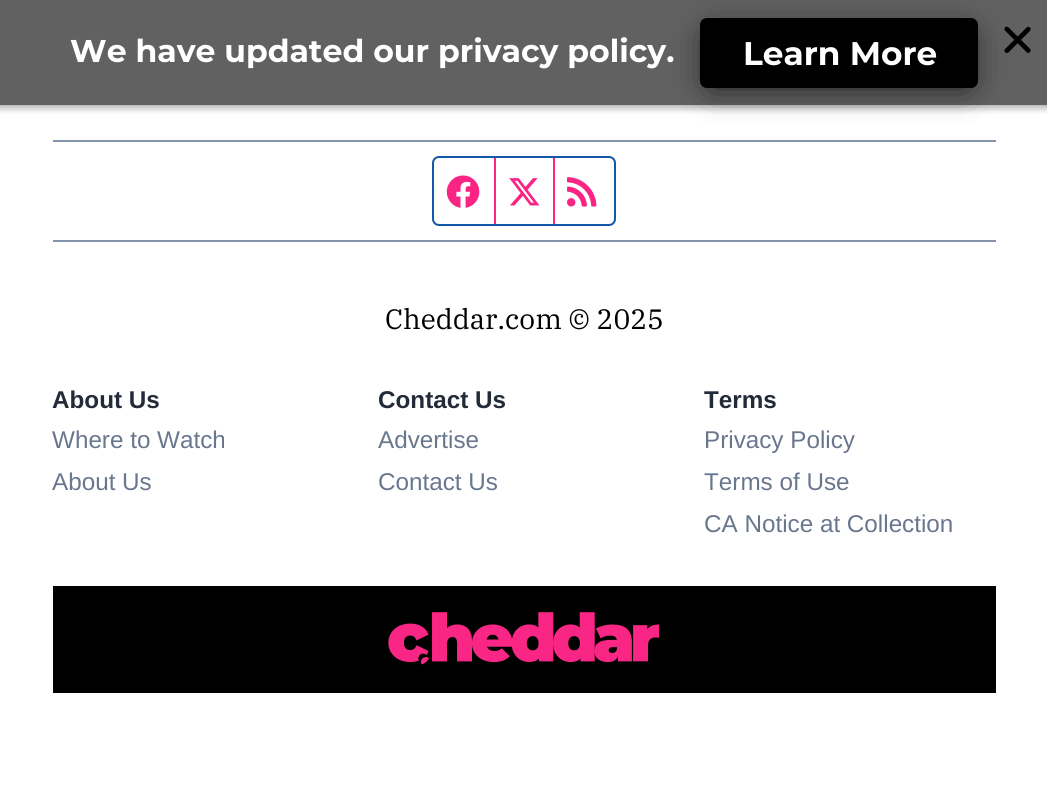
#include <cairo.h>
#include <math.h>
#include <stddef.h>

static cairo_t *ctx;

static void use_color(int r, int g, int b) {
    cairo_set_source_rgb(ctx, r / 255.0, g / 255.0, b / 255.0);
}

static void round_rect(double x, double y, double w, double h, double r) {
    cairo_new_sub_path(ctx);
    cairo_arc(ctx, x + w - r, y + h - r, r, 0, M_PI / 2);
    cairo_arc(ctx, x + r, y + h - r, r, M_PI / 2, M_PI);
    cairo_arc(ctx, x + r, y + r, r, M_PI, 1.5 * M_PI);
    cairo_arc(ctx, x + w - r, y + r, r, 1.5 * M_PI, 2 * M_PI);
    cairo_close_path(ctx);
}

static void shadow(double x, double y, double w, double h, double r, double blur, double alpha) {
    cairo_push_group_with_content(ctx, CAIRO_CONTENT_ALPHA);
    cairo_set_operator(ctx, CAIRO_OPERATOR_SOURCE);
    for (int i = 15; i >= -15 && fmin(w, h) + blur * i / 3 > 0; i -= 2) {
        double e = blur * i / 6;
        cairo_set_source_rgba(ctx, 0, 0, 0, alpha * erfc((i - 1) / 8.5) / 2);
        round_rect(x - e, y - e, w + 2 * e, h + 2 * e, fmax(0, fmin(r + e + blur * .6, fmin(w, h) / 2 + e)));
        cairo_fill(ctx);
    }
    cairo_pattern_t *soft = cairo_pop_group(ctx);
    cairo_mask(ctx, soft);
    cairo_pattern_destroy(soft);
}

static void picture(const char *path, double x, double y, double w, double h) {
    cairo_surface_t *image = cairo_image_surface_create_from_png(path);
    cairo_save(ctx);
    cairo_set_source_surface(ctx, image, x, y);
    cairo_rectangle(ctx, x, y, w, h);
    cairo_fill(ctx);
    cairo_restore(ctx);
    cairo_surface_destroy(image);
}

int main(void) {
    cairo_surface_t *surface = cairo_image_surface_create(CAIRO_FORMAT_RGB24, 1047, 791);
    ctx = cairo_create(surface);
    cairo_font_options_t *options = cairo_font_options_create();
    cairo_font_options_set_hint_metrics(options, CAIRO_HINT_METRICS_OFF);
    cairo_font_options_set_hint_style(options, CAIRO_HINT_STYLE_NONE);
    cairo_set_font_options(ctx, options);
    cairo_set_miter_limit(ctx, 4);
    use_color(255, 255, 255);
    cairo_paint(ctx);
    use_color(0, 0, 0);
    shadow(-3, -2, 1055, 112, 0, 2.5, 0.15);
    shadow(0, 4, 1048, 98, 0, 5, 0.5);
    use_color(97, 97, 97);
    cairo_rectangle(ctx, 0, 0, 1047, 105);
    cairo_fill(ctx);
    cairo_select_font_face(ctx, "Montserrat", CAIRO_FONT_SLANT_NORMAL, CAIRO_FONT_WEIGHT_BOLD);
    cairo_set_font_size(ctx, 31.5);
    use_color(255, 255, 255);
    cairo_move_to(ctx, 70, 62);
    cairo_show_text(ctx, "We have updated our privacy policy.");
    use_color(0, 0, 0);
    shadow(712, 37, 254, 45, 0, 17.5, 1);
    use_color(0, 0, 0);
    round_rect(700, 18, 278, 70, 7);
    cairo_fill(ctx);
    cairo_set_font_size(ctx, 32.75);
    use_color(255, 255, 255);
    cairo_move_to(ctx, 743, 65);
    cairo_show_text(ctx, "Learn More");
    picture("img1.png", 1004, 26, 27, 27);
    use_color(133, 147, 170);
    cairo_rectangle(ctx, 53, 140, 943, 2);
    cairo_fill(ctx);
    cairo_rectangle(ctx, 53, 240, 943, 2);
    cairo_fill(ctx);
    round_rect(433, 157, 182, 68, 6);
    use_color(20, 88, 169);
    cairo_stroke(ctx);
    use_color(249, 36, 132);
    cairo_rectangle(ctx, 494, 158, 2, 66);
    cairo_fill(ctx);
    picture("img2.png", 446, 175, 34, 33);
    cairo_rectangle(ctx, 553, 158, 2, 66);
    cairo_fill(ctx);
    picture("img3.png", 509, 178, 31, 28);
    picture("img4.png", 567, 177, 30, 30);
    cairo_select_font_face(ctx, "IBM Plex Serif", CAIRO_FONT_SLANT_NORMAL, CAIRO_FONT_WEIGHT_NORMAL);
    cairo_set_font_size(ctx, 28);
    use_color(0, 0, 0);
    cairo_move_to(ctx, 385, 329);
    cairo_show_text(ctx, "Cheddar.com © 2025");
    cairo_select_font_face(ctx, "Liberation Sans", CAIRO_FONT_SLANT_NORMAL, CAIRO_FONT_WEIGHT_BOLD);
    cairo_set_font_size(ctx, 24.25);
    use_color(35, 43, 57);
    cairo_move_to(ctx, 52, 408);
    cairo_show_text(ctx, "About Us");
    cairo_select_font_face(ctx, "Liberation Sans", CAIRO_FONT_SLANT_NORMAL, CAIRO_FONT_WEIGHT_NORMAL);
    use_color(105, 119, 142);
    cairo_move_to(ctx, 52, 448);
    cairo_show_text(ctx, "Where to Watch");
    cairo_move_to(ctx, 52, 490);
    cairo_show_text(ctx, "About Us");
    cairo_select_font_face(ctx, "Liberation Sans", CAIRO_FONT_SLANT_NORMAL, CAIRO_FONT_WEIGHT_BOLD);
    use_color(35, 43, 57);
    cairo_move_to(ctx, 378, 408);
    cairo_show_text(ctx, "Contact Us");
    cairo_select_font_face(ctx, "Liberation Sans", CAIRO_FONT_SLANT_NORMAL, CAIRO_FONT_WEIGHT_NORMAL);
    use_color(105, 119, 142);
    cairo_move_to(ctx, 378, 448);
    cairo_show_text(ctx, "Advertise");
    cairo_move_to(ctx, 378, 490);
    cairo_show_text(ctx, "Contact Us");
    cairo_select_font_face(ctx, "Liberation Sans", CAIRO_FONT_SLANT_NORMAL, CAIRO_FONT_WEIGHT_BOLD);
    use_color(35, 43, 57);
    cairo_move_to(ctx, 704, 408);
    cairo_show_text(ctx, "Terms");
    cairo_select_font_face(ctx, "Liberation Sans", CAIRO_FONT_SLANT_NORMAL, CAIRO_FONT_WEIGHT_NORMAL);
    use_color(105, 119, 142);
    cairo_move_to(ctx, 704, 448);
    cairo_show_text(ctx, "Privacy Policy");
    cairo_move_to(ctx, 704, 490);
    cairo_show_text(ctx, "Terms of Use");
    cairo_move_to(ctx, 704, 532);
    cairo_show_text(ctx, "CA Notice at Collection");
    use_color(0, 0, 0);
    cairo_rectangle(ctx, 53, 586, 943, 107);
    cairo_fill(ctx);
    picture("img5.png", 388, 612, 272, 53);
    cairo_surface_write_to_png(surface, "result.png");
    cairo_font_options_destroy(options);
    cairo_destroy(ctx);
    cairo_surface_destroy(surface);
    return 0;
}
